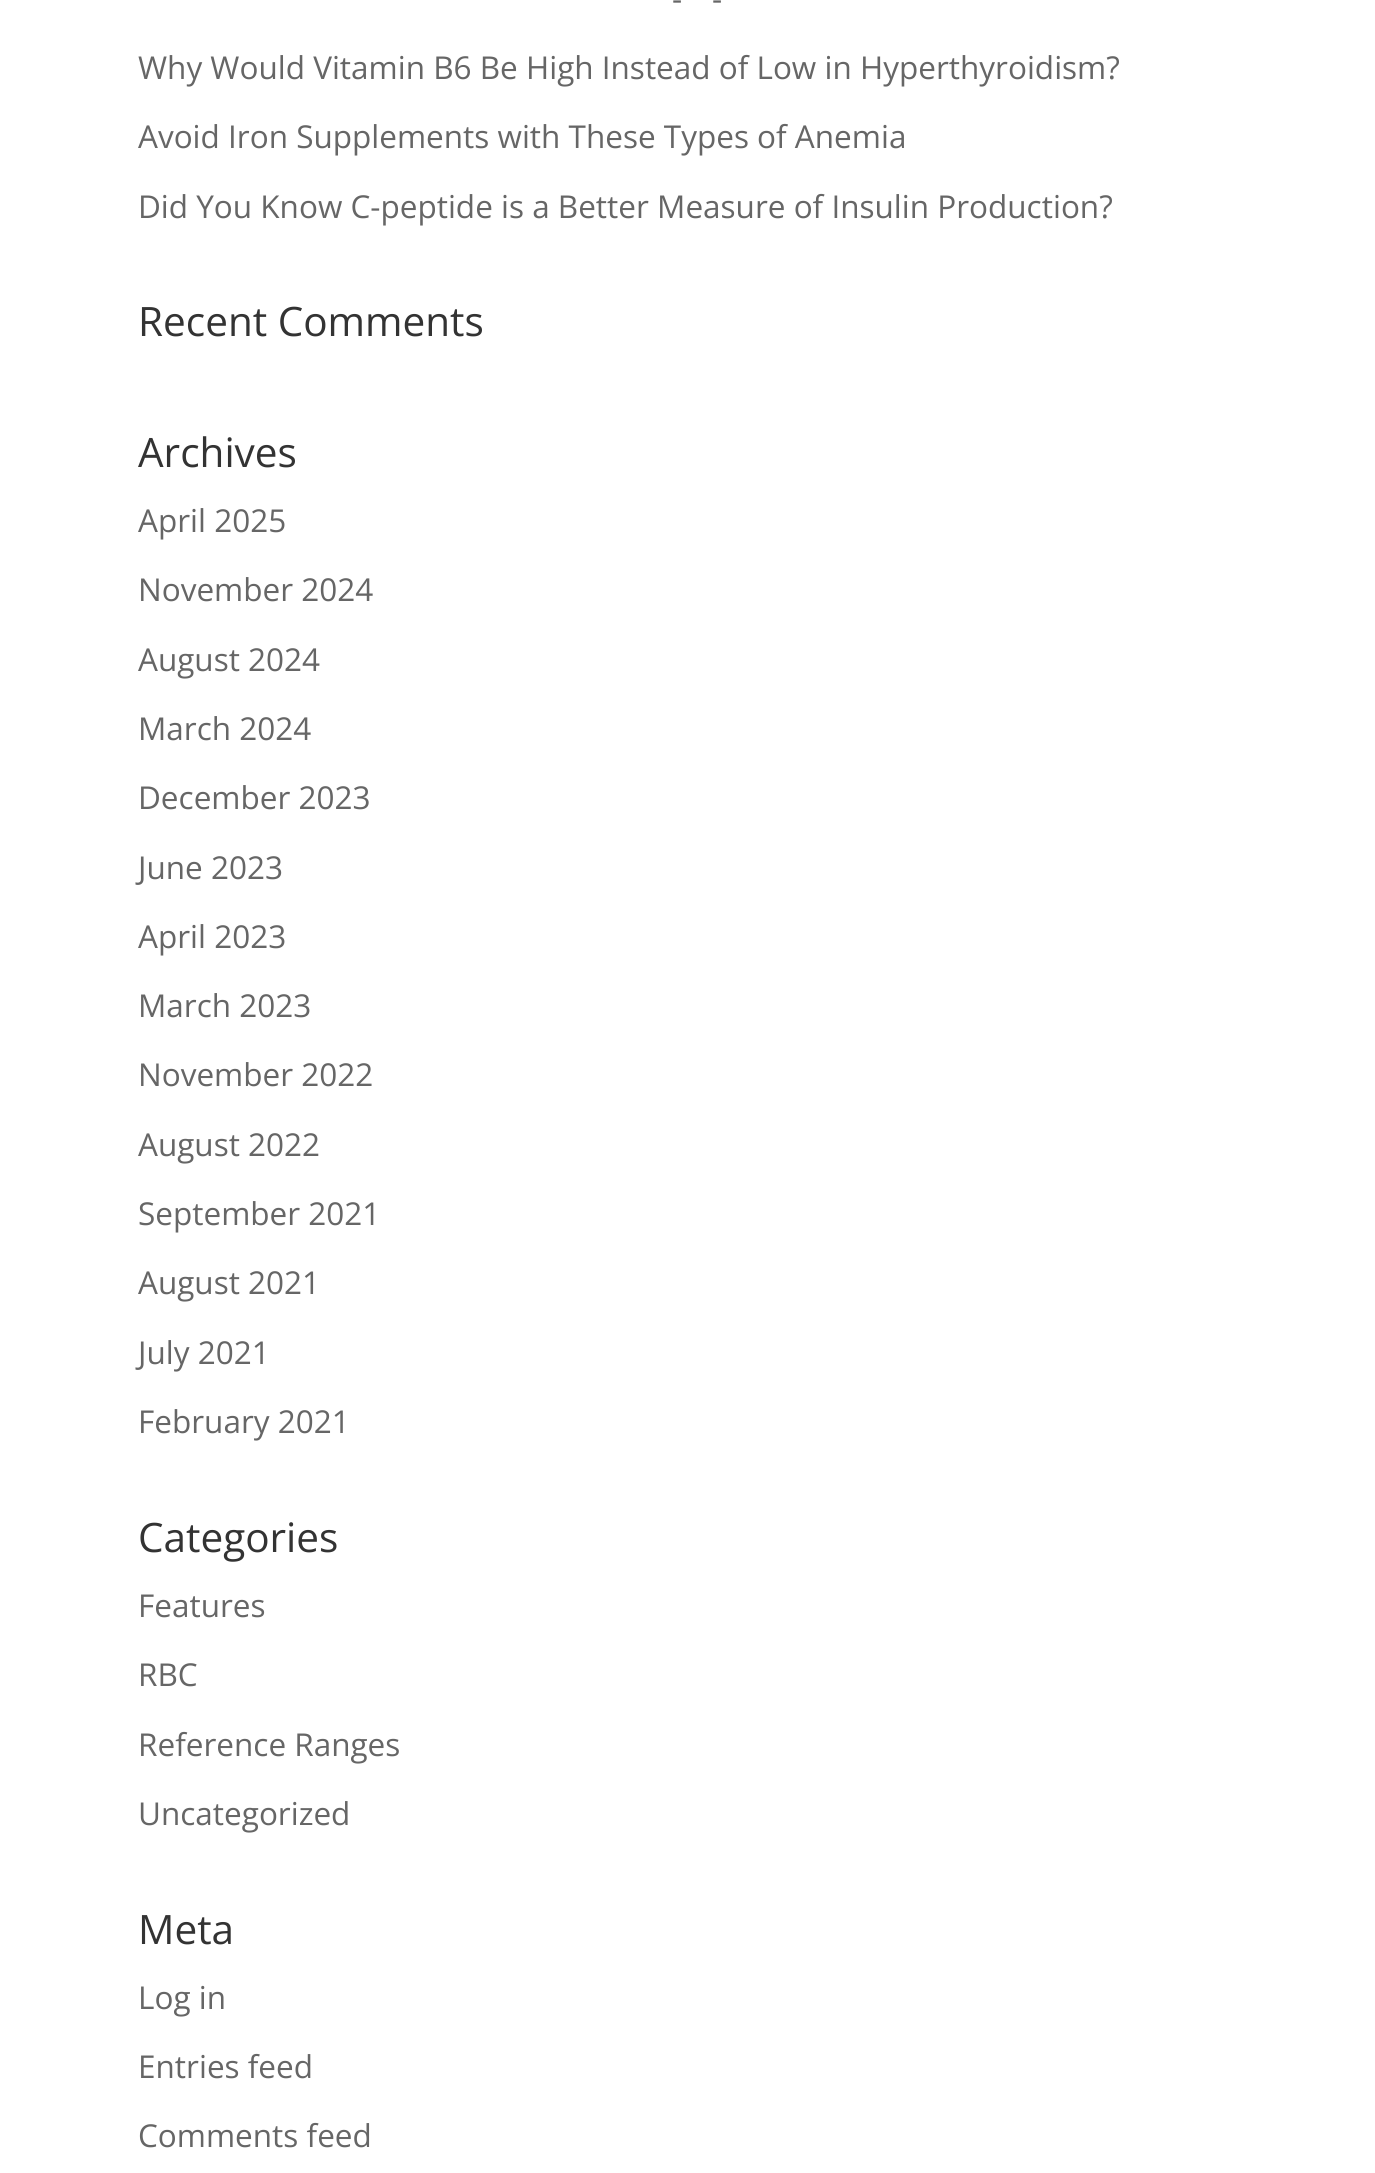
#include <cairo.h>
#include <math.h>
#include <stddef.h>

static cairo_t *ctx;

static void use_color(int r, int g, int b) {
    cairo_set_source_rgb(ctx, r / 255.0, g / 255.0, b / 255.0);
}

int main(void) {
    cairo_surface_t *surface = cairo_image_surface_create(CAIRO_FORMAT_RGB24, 1375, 2173);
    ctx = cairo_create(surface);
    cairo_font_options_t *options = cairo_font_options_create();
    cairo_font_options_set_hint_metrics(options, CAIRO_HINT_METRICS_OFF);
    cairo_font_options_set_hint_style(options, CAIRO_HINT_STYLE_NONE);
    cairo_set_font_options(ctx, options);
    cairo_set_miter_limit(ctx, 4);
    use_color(255, 255, 255);
    cairo_paint(ctx);
    cairo_select_font_face(ctx, "Open Sans", CAIRO_FONT_SLANT_NORMAL, CAIRO_FONT_WEIGHT_NORMAL);
    cairo_set_font_size(ctx, 31.5);
    use_color(102, 102, 102);
    cairo_move_to(ctx, 672, 10);
    cairo_show_text(ctx, "-");
    cairo_move_to(ctx, 712, 10);
    cairo_show_text(ctx, "-");
    cairo_move_to(ctx, 138, 79);
    cairo_show_text(ctx, "Why Would Vitamin B6 Be High Instead of Low in Hyperthyroidism?");
    cairo_move_to(ctx, 138, 148);
    cairo_show_text(ctx, "Avoid Iron Supplements with These Types of Anemia");
    cairo_move_to(ctx, 138, 218);
    cairo_show_text(ctx, "Did You Know C-peptide is a Better Measure of Insulin Production?");
    cairo_set_font_size(ctx, 40.5);
    use_color(51, 51, 51);
    cairo_move_to(ctx, 138, 336);
    cairo_show_text(ctx, "Recent Comments");
    cairo_move_to(ctx, 138, 467);
    cairo_show_text(ctx, "Archives");
    cairo_set_font_size(ctx, 31.5);
    use_color(102, 102, 102);
    cairo_move_to(ctx, 138, 532);
    cairo_show_text(ctx, "April 2025");
    cairo_move_to(ctx, 138, 601);
    cairo_show_text(ctx, "November 2024");
    cairo_move_to(ctx, 138, 671);
    cairo_show_text(ctx, "August 2024");
    cairo_move_to(ctx, 138, 740);
    cairo_show_text(ctx, "March 2024");
    cairo_move_to(ctx, 138, 809);
    cairo_show_text(ctx, "December 2023");
    cairo_move_to(ctx, 138, 879);
    cairo_show_text(ctx, "June 2023");
    cairo_move_to(ctx, 138, 948);
    cairo_show_text(ctx, "April 2023");
    cairo_move_to(ctx, 138, 1017);
    cairo_show_text(ctx, "March 2023");
    cairo_move_to(ctx, 138, 1086);
    cairo_show_text(ctx, "November 2022");
    cairo_move_to(ctx, 138, 1156);
    cairo_show_text(ctx, "August 2022");
    cairo_move_to(ctx, 138, 1225);
    cairo_show_text(ctx, "September 2021");
    cairo_move_to(ctx, 138, 1294);
    cairo_show_text(ctx, "August 2021");
    cairo_move_to(ctx, 138, 1364);
    cairo_show_text(ctx, "July 2021");
    cairo_move_to(ctx, 138, 1433);
    cairo_show_text(ctx, "February 2021");
    cairo_set_font_size(ctx, 40.5);
    use_color(51, 51, 51);
    cairo_move_to(ctx, 138, 1552);
    cairo_show_text(ctx, "Categories");
    cairo_set_font_size(ctx, 31.5);
    use_color(102, 102, 102);
    cairo_move_to(ctx, 138, 1617);
    cairo_show_text(ctx, "Features");
    cairo_move_to(ctx, 138, 1686);
    cairo_show_text(ctx, "RBC");
    cairo_move_to(ctx, 138, 1756);
    cairo_show_text(ctx, "Reference Ranges");
    cairo_move_to(ctx, 138, 1825);
    cairo_show_text(ctx, "Uncategorized");
    cairo_set_font_size(ctx, 40.5);
    use_color(51, 51, 51);
    cairo_move_to(ctx, 138, 1944);
    cairo_show_text(ctx, "Meta");
    cairo_set_font_size(ctx, 31.5);
    use_color(102, 102, 102);
    cairo_move_to(ctx, 138, 2009);
    cairo_show_text(ctx, "Log in");
    cairo_move_to(ctx, 138, 2078);
    cairo_show_text(ctx, "Entries feed");
    cairo_move_to(ctx, 138, 2147);
    cairo_show_text(ctx, "Comments feed");
    cairo_surface_write_to_png(surface, "result.png");
    cairo_font_options_destroy(options);
    cairo_destroy(ctx);
    cairo_surface_destroy(surface);
    return 0;
}
